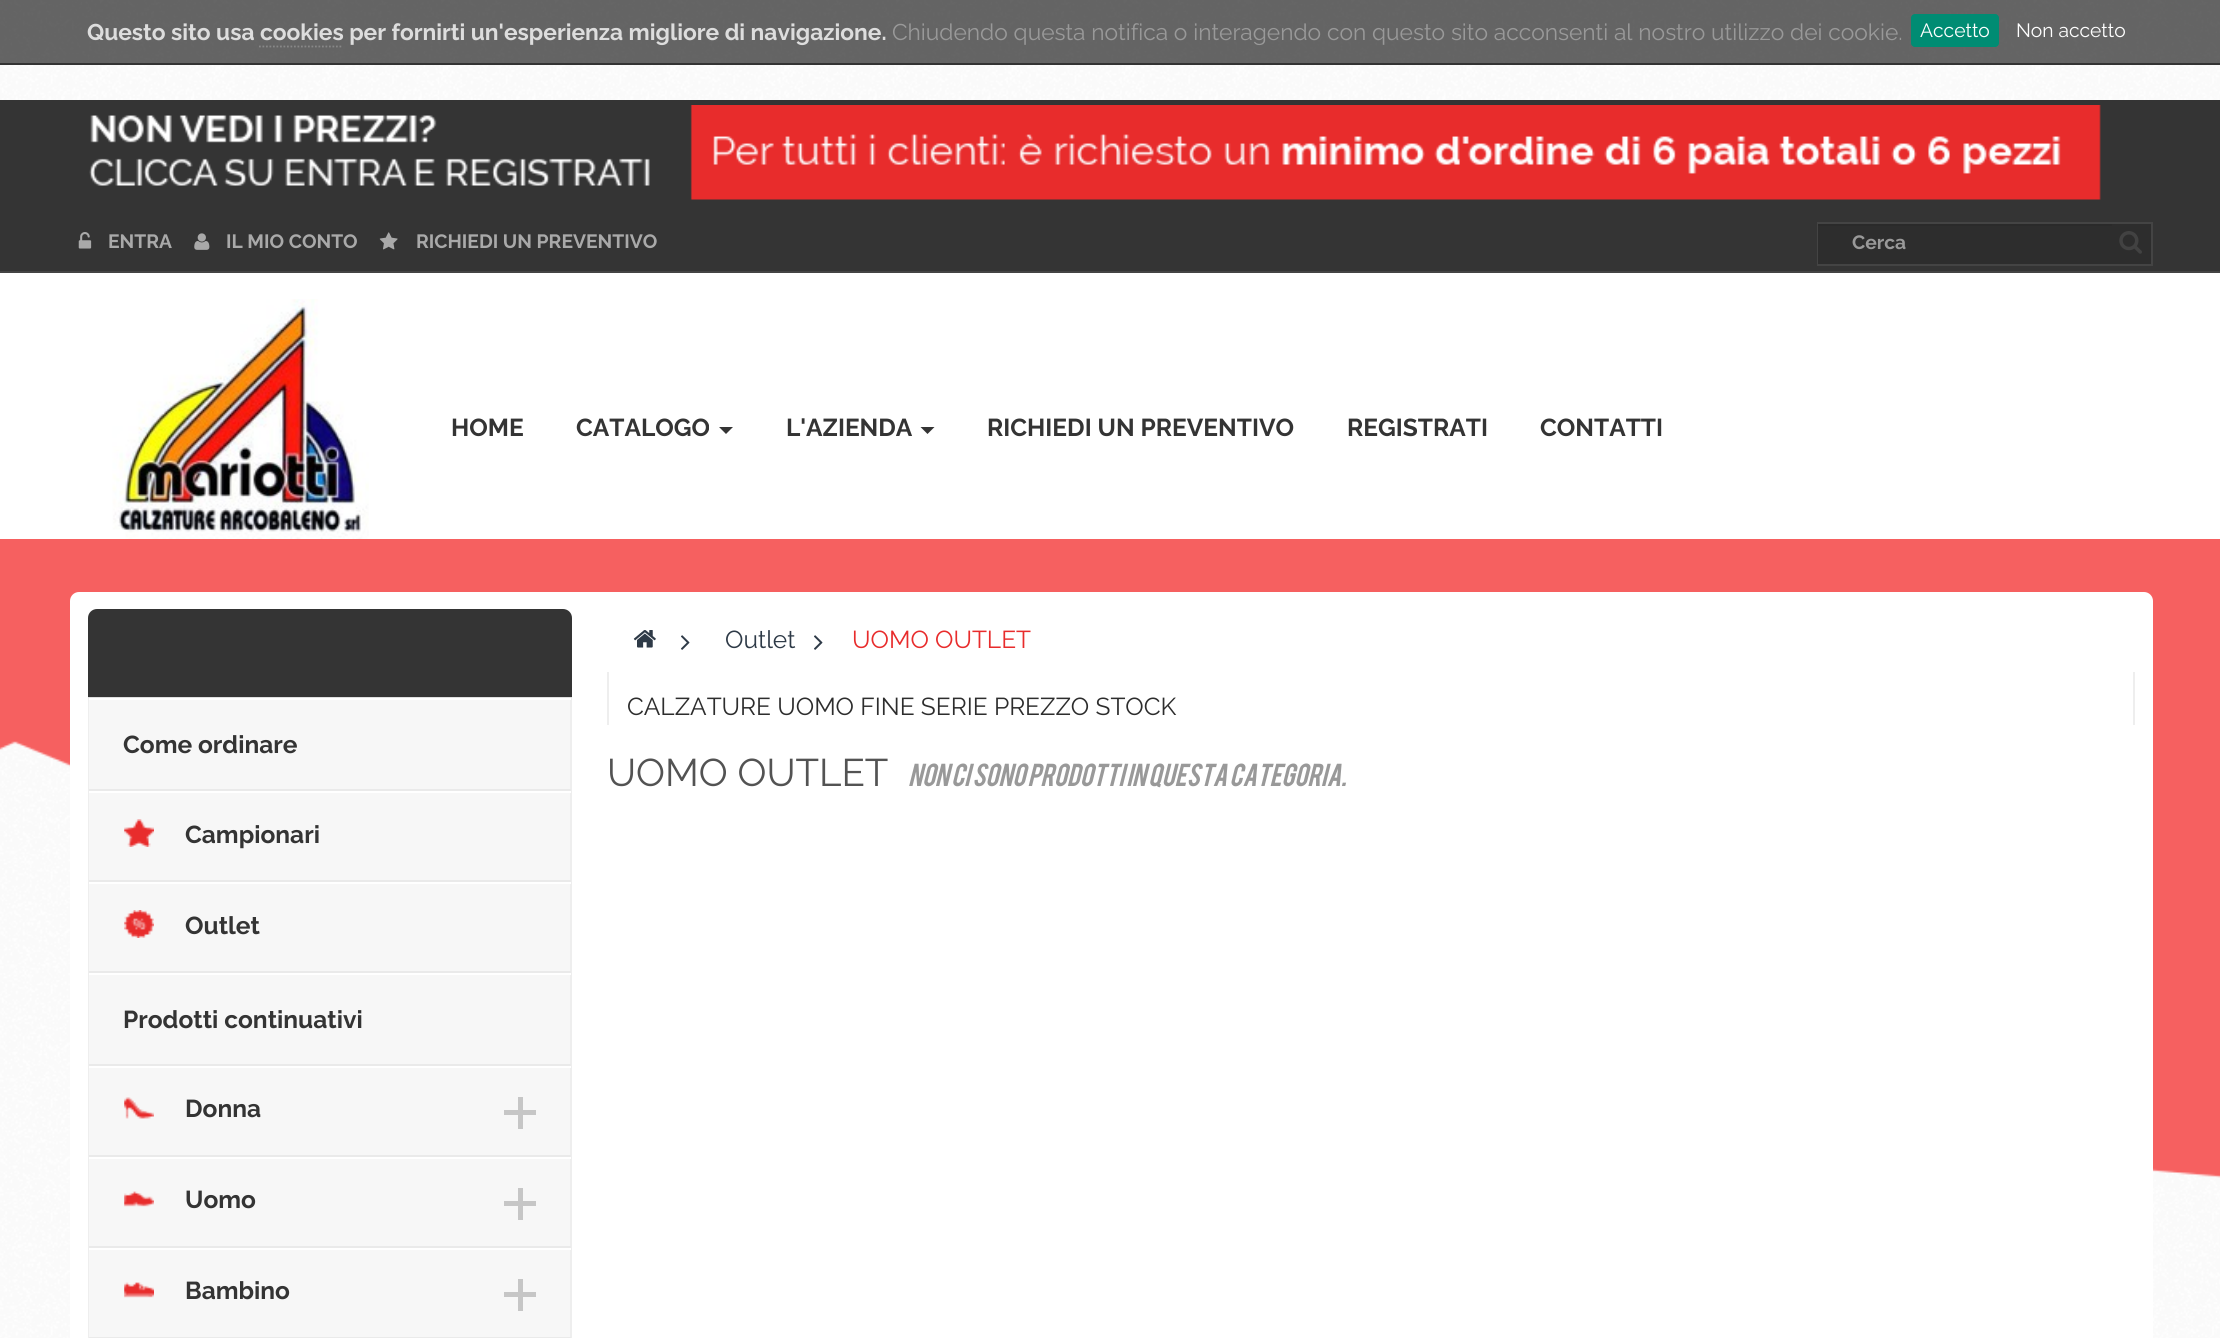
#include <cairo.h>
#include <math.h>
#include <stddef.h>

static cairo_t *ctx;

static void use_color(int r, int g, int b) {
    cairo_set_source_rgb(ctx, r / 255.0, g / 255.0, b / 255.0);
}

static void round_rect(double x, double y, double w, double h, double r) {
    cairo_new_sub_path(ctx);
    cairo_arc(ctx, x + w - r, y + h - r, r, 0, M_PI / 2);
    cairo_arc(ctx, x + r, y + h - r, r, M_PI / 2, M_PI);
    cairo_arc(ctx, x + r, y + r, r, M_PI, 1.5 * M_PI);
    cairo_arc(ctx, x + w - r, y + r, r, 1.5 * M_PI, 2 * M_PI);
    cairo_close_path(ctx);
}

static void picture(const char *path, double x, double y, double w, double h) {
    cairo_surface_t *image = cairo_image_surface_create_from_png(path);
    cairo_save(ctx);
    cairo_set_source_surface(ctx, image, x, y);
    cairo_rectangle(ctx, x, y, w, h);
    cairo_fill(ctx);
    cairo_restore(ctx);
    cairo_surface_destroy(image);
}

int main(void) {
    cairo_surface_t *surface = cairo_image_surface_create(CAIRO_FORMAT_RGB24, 2220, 1338);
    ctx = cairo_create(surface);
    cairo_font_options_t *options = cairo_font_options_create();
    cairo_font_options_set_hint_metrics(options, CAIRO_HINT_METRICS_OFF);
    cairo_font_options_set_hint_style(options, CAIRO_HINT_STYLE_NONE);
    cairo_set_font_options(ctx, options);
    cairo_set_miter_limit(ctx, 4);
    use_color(255, 255, 255);
    cairo_paint(ctx);
    picture("img1.png", 0, 0, 2220, 1338);
    cairo_set_source_rgba(ctx, 0, 0, 0, 0.6);
    cairo_rectangle(ctx, 0, 0, 2220, 63);
    cairo_fill(ctx);
    use_color(51, 51, 51);
    cairo_rectangle(ctx, 0, 63, 2220, 2);
    cairo_fill(ctx);
    cairo_select_font_face(ctx, "Raleway", CAIRO_FONT_SLANT_NORMAL, CAIRO_FONT_WEIGHT_BOLD);
    cairo_set_font_size(ctx, 22.75);
    use_color(221, 221, 221);
    cairo_move_to(ctx, 87, 40);
    cairo_show_text(ctx, "Questo sito usa cookies per fornirti un'esperienza migliore di navigazione.");
    cairo_new_path(ctx);
    cairo_move_to(ctx, 259, 46.5);
    cairo_line_to(ctx, 343, 46.5);
    use_color(136, 136, 136);
    cairo_set_line_width(ctx, 1.8);
    cairo_set_dash(ctx, (double[]){1.75, 1.75}, 2, 0);
    cairo_stroke(ctx);
    cairo_select_font_face(ctx, "Raleway", CAIRO_FONT_SLANT_NORMAL, CAIRO_FONT_WEIGHT_NORMAL);
    use_color(153, 153, 153);
    cairo_move_to(ctx, 892, 40);
    cairo_show_text(ctx, "Chiudendo questa notifica o interagendo con questo sito acconsenti al nostro utilizzo dei cookie.");
    use_color(0, 140, 115);
    round_rect(1911, 14, 88, 33, 4);
    cairo_fill(ctx);
    cairo_set_font_size(ctx, 19.25);
    use_color(255, 255, 255);
    cairo_move_to(ctx, 1920, 37);
    cairo_show_text(ctx, "Accetto");
    cairo_move_to(ctx, 2016, 37);
    cairo_show_text(ctx, "Non accetto");
    use_color(52, 52, 52);
    cairo_rectangle(ctx, 0, 100, 2220, 171);
    cairo_fill(ctx);
    use_color(68, 68, 68);
    cairo_rectangle(ctx, 0, 271, 2220, 2);
    cairo_fill(ctx);
    picture("img2.png", 89, 105, 2012, 95);
    picture("img3.png", 78, 232, 14, 17);
    cairo_select_font_face(ctx, "Raleway", CAIRO_FONT_SLANT_NORMAL, CAIRO_FONT_WEIGHT_BOLD);
    use_color(169, 169, 169);
    cairo_move_to(ctx, 108, 248);
    cairo_show_text(ctx, "ENTRA");
    picture("img4.png", 194, 233, 16, 17);
    cairo_move_to(ctx, 226, 248);
    cairo_show_text(ctx, "IL MIO CONTO");
    picture("img5.png", 379, 232, 19, 18);
    cairo_move_to(ctx, 416, 248);
    cairo_show_text(ctx, "RICHIEDI UN PREVENTIVO");
    use_color(45, 45, 45);
    cairo_rectangle(ctx, 2112, 224, 39, 40);
    cairo_fill(ctx);
    cairo_rectangle(ctx, 1818, 223, 334, 42);
    use_color(68, 68, 68);
    cairo_set_line_width(ctx, 2);
    cairo_set_dash(ctx, NULL, 0, 0);
    cairo_stroke(ctx);
    use_color(45, 45, 45);
    cairo_rectangle(ctx, 1818, 226, 294, 38);
    cairo_fill(ctx);
    use_color(42, 42, 42);
    cairo_rectangle(ctx, 1818, 224, 294, 2);
    cairo_fill(ctx);
    use_color(153, 153, 153);
    cairo_move_to(ctx, 1852, 249);
    cairo_show_text(ctx, "Cerca");
    picture("img6.png", 2119, 231, 23, 23);
    use_color(255, 255, 255);
    cairo_rectangle(ctx, 0, 273, 2220, 266);
    cairo_fill(ctx);
    picture("img7.png", 112, 299, 257, 240);
    cairo_set_font_size(ctx, 24.5);
    use_color(52, 52, 52);
    cairo_move_to(ctx, 451, 436);
    cairo_show_text(ctx, "HOME");
    cairo_move_to(ctx, 576, 436);
    cairo_show_text(ctx, "CATALOGO");
    cairo_new_path(ctx);
    cairo_move_to(ctx, 719, 427);
    cairo_line_to(ctx, 733, 427);
    cairo_line_to(ctx, 726, 434);
    cairo_close_path(ctx);
    cairo_fill(ctx);
    cairo_move_to(ctx, 786, 436);
    cairo_show_text(ctx, "L'AZIENDA");
    cairo_new_path(ctx);
    cairo_move_to(ctx, 920.5, 427);
    cairo_line_to(ctx, 934.5, 427);
    cairo_line_to(ctx, 927.5, 434);
    cairo_close_path(ctx);
    cairo_fill(ctx);
    cairo_move_to(ctx, 987, 436);
    cairo_show_text(ctx, "RICHIEDI UN PREVENTIVO");
    cairo_move_to(ctx, 1347, 436);
    cairo_show_text(ctx, "REGISTRATI");
    cairo_move_to(ctx, 1540, 436);
    cairo_show_text(ctx, "CONTATTI");
    picture("img8.png", 0, 539, 2220, 639);
    use_color(255, 255, 255);
    round_rect(70, 592, 2083, 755, 9);
    cairo_fill(ctx);
    picture("img9.png", 633, 630, 23, 18);
    picture("img10.png", 681, 635, 9, 15);
    cairo_select_font_face(ctx, "Raleway", CAIRO_FONT_SLANT_NORMAL, CAIRO_FONT_WEIGHT_NORMAL);
    use_color(46, 58, 71);
    cairo_move_to(ctx, 725, 648);
    cairo_show_text(ctx, "Outlet");
    picture("img10.png", 814, 635, 9, 15);
    use_color(232, 44, 44);
    cairo_move_to(ctx, 852, 648);
    cairo_show_text(ctx, "UOMO OUTLET");
    use_color(238, 238, 238);
    cairo_rectangle(ctx, 2133, 672, 2, 53);
    cairo_fill(ctx);
    cairo_rectangle(ctx, 607, 672, 2, 53);
    cairo_fill(ctx);
    use_color(45, 45, 45);
    cairo_move_to(ctx, 627, 715);
    cairo_show_text(ctx, "CALZATURE UOMO FINE SERIE PREZZO STOCK");
    cairo_set_font_size(ctx, 38.5);
    use_color(83, 83, 83);
    cairo_move_to(ctx, 607, 786);
    cairo_show_text(ctx, "UOMO OUTLET");
    cairo_select_font_face(ctx, "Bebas", CAIRO_FONT_SLANT_ITALIC, CAIRO_FONT_WEIGHT_NORMAL);
    cairo_set_font_size(ctx, 25);
    use_color(153, 153, 153);
    cairo_move_to(ctx, 908, 786);
    cairo_show_text(ctx, "Non ci sono prodotti in questa categoria.");
    use_color(52, 52, 52);
    cairo_new_path(ctx);
    cairo_move_to(ctx, 97, 609);
    cairo_line_to(ctx, 563, 609);
    cairo_curve_to(ctx, 568, 609, 572, 613, 572, 618);
    cairo_line_to(ctx, 572, 698);
    cairo_line_to(ctx, 88, 698);
    cairo_line_to(ctx, 88, 618);
    cairo_curve_to(ctx, 88, 613, 92, 609, 97, 609);
    cairo_close_path(ctx);
    cairo_fill(ctx);
    use_color(223, 223, 223);
    cairo_rectangle(ctx, 88, 697, 484, 1);
    cairo_fill(ctx);
    use_color(247, 247, 247);
    cairo_rectangle(ctx, 89, 700, 481, 637);
    cairo_fill(ctx);
    use_color(238, 238, 238);
    cairo_set_fill_rule(ctx, CAIRO_FILL_RULE_EVEN_ODD);
    cairo_new_path(ctx);
    cairo_move_to(ctx, 88, 698);
    cairo_line_to(ctx, 572, 698);
    cairo_line_to(ctx, 572, 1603);
    cairo_curve_to(ctx, 572, 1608, 568, 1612, 564, 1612);
    cairo_line_to(ctx, 96, 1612);
    cairo_curve_to(ctx, 91, 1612, 88, 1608, 88, 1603);
    cairo_close_path(ctx);
    cairo_move_to(ctx, 89, 698);
    cairo_line_to(ctx, 570, 698);
    cairo_line_to(ctx, 570, 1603);
    cairo_curve_to(ctx, 570, 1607, 567, 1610, 564, 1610);
    cairo_line_to(ctx, 96, 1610);
    cairo_curve_to(ctx, 92, 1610, 89, 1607, 89, 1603);
    cairo_close_path(ctx);
    cairo_fill(ctx);
    use_color(255, 255, 255);
    cairo_rectangle(ctx, 570, 698, 1, 2);
    cairo_fill(ctx);
    use_color(234, 234, 234);
    cairo_rectangle(ctx, 89, 789, 482, 2);
    cairo_fill(ctx);
    cairo_select_font_face(ctx, "Raleway", CAIRO_FONT_SLANT_NORMAL, CAIRO_FONT_WEIGHT_BOLD);
    cairo_set_font_size(ctx, 24.5);
    use_color(52, 52, 52);
    cairo_move_to(ctx, 123, 753);
    cairo_show_text(ctx, "Come ordinare");
    use_color(255, 255, 255);
    cairo_rectangle(ctx, 89, 791, 482, 2);
    cairo_fill(ctx);
    use_color(234, 234, 234);
    cairo_rectangle(ctx, 89, 880, 482, 2);
    cairo_fill(ctx);
    picture("img11.png", 124, 819, 30, 28);
    use_color(52, 52, 52);
    cairo_move_to(ctx, 185, 843);
    cairo_show_text(ctx, "Campionari");
    use_color(255, 255, 255);
    cairo_rectangle(ctx, 89, 882, 482, 2);
    cairo_fill(ctx);
    use_color(234, 234, 234);
    cairo_rectangle(ctx, 89, 971, 482, 2);
    cairo_fill(ctx);
    picture("img12.png", 124, 910, 30, 28);
    use_color(52, 52, 52);
    cairo_move_to(ctx, 185, 934);
    cairo_show_text(ctx, "Outlet");
    use_color(255, 255, 255);
    cairo_rectangle(ctx, 89, 973, 482, 2);
    cairo_fill(ctx);
    use_color(234, 234, 234);
    cairo_rectangle(ctx, 89, 1064, 482, 2);
    cairo_fill(ctx);
    use_color(52, 52, 52);
    cairo_move_to(ctx, 123, 1028);
    cairo_show_text(ctx, "Prodotti continuativi");
    use_color(255, 255, 255);
    cairo_rectangle(ctx, 89, 1066, 482, 2);
    cairo_fill(ctx);
    use_color(234, 234, 234);
    cairo_rectangle(ctx, 89, 1155, 482, 2);
    cairo_fill(ctx);
    picture("img13.png", 124, 1097, 30, 22);
    use_color(52, 52, 52);
    cairo_move_to(ctx, 185, 1117);
    cairo_show_text(ctx, "Donna");
    use_color(198, 198, 198);
    cairo_rectangle(ctx, 504, 1110, 32, 5);
    cairo_fill(ctx);
    cairo_rectangle(ctx, 518, 1097, 5, 32);
    cairo_fill(ctx);
    use_color(255, 255, 255);
    cairo_rectangle(ctx, 89, 1157, 482, 2);
    cairo_fill(ctx);
    use_color(234, 234, 234);
    cairo_rectangle(ctx, 89, 1246, 482, 2);
    cairo_fill(ctx);
    picture("img14.png", 124, 1191, 30, 16);
    use_color(52, 52, 52);
    cairo_move_to(ctx, 185, 1208);
    cairo_show_text(ctx, "Uomo");
    use_color(198, 198, 198);
    cairo_rectangle(ctx, 504, 1201, 32, 5);
    cairo_fill(ctx);
    cairo_rectangle(ctx, 518, 1188, 5, 32);
    cairo_fill(ctx);
    use_color(255, 255, 255);
    cairo_rectangle(ctx, 89, 1248, 482, 2);
    cairo_fill(ctx);
    use_color(234, 234, 234);
    cairo_rectangle(ctx, 89, 1337, 482, 1);
    cairo_fill(ctx);
    picture("img15.png", 124, 1282, 30, 16);
    use_color(52, 52, 52);
    cairo_move_to(ctx, 185, 1299);
    cairo_show_text(ctx, "Bambino");
    use_color(198, 198, 198);
    cairo_rectangle(ctx, 504, 1292, 32, 5);
    cairo_fill(ctx);
    cairo_rectangle(ctx, 518, 1279, 5, 32);
    cairo_fill(ctx);
    cairo_surface_write_to_png(surface, "result.png");
    cairo_font_options_destroy(options);
    cairo_destroy(ctx);
    cairo_surface_destroy(surface);
    return 0;
}
